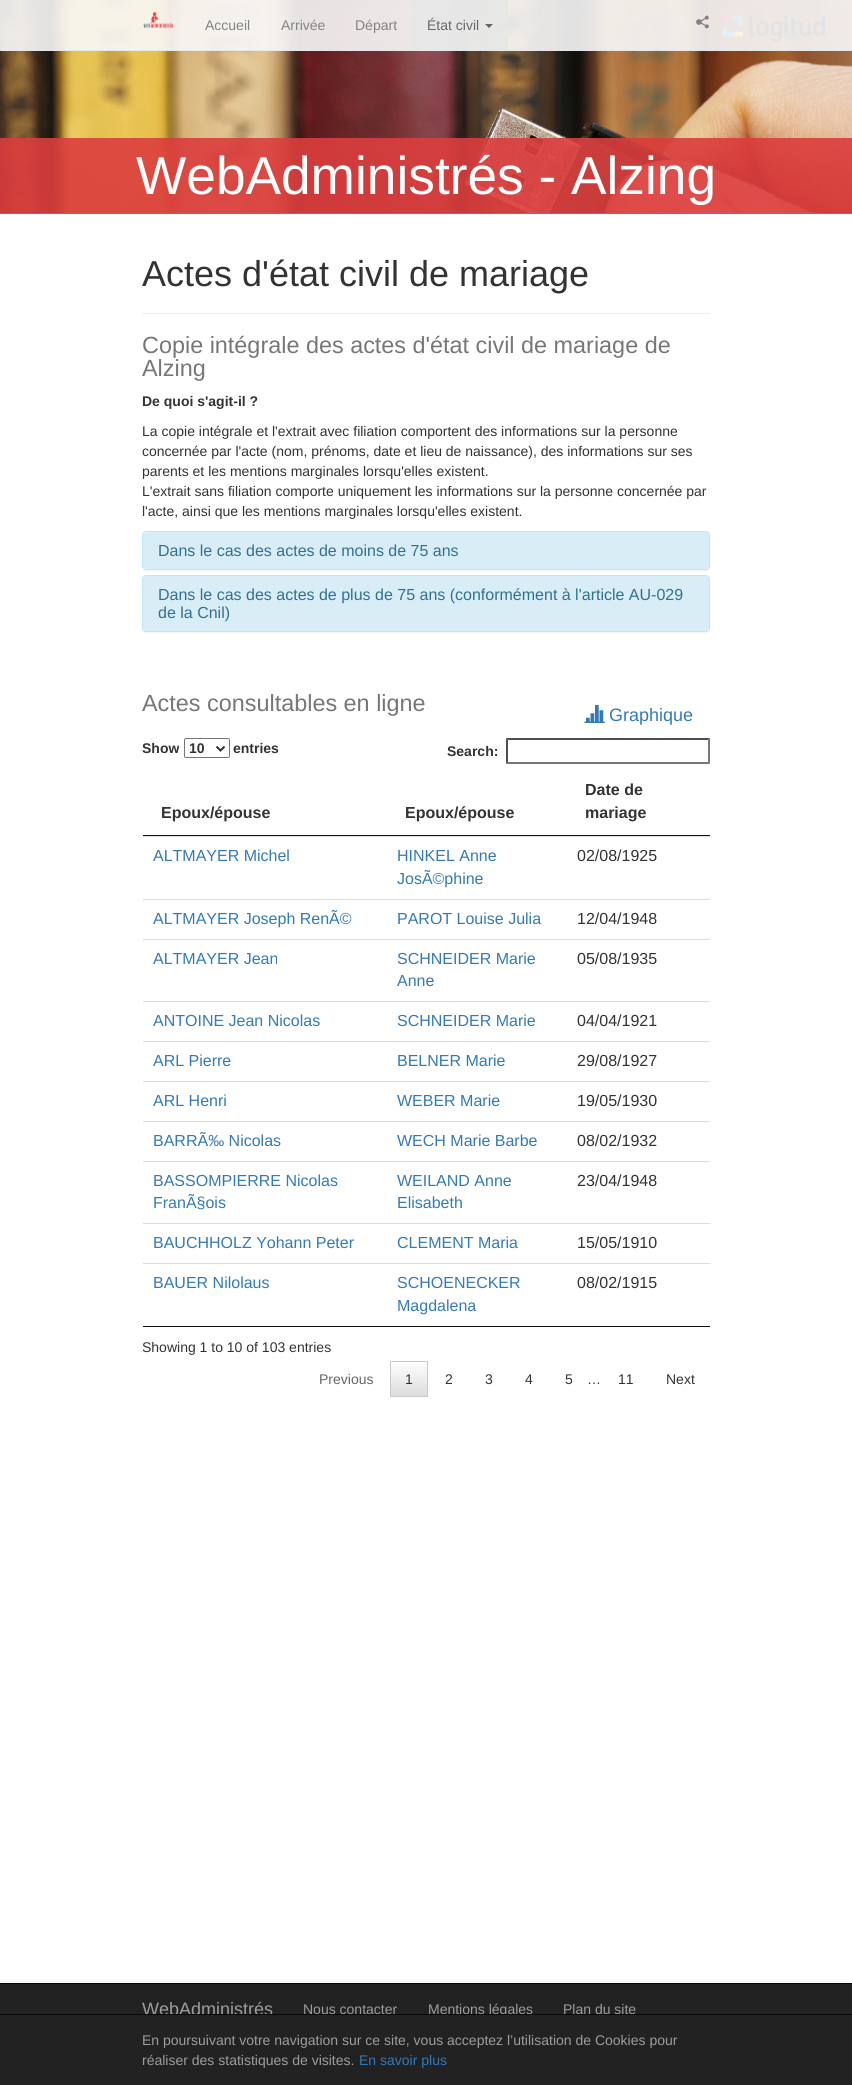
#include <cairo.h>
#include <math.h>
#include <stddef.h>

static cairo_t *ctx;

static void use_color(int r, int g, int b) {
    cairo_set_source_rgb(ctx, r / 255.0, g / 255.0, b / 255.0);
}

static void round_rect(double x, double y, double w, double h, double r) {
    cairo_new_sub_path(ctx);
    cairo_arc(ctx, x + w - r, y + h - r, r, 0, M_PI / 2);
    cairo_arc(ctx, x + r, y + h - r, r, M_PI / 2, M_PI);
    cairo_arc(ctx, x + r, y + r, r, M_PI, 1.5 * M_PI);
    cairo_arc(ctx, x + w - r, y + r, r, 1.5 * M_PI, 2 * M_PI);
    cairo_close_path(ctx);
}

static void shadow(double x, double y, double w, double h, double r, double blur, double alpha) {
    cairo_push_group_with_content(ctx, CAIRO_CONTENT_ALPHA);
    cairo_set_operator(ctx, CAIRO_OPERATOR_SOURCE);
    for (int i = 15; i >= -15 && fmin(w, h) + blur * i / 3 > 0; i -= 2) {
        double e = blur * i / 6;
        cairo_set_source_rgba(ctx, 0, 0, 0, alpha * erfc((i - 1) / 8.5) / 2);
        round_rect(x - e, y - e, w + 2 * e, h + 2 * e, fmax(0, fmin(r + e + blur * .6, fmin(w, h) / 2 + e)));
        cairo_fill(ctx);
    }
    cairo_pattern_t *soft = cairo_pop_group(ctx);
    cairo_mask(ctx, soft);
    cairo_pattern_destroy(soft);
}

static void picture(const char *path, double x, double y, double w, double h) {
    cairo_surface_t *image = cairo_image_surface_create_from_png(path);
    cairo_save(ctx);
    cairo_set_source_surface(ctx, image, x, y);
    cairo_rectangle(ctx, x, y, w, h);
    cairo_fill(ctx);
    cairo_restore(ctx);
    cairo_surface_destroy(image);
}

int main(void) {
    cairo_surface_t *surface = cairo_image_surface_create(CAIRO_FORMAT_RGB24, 852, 2085);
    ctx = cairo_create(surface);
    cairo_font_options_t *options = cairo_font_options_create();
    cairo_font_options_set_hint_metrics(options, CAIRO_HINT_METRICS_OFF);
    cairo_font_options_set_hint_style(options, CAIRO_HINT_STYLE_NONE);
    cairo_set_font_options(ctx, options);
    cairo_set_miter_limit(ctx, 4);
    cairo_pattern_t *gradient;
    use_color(255, 255, 255);
    cairo_paint(ctx);
    picture("img1.png", 0, 0, 852, 213);
    cairo_set_source_rgba(ctx, 0.973, 0.973, 0.973, 0.9);
    cairo_rectangle(ctx, 0, 0, 852, 51);
    cairo_fill(ctx);
    cairo_set_source_rgba(ctx, 0.906, 0.906, 0.906, 0.9);
    cairo_rectangle(ctx, 0, 50, 852, 1);
    cairo_fill(ctx);
    picture("img2.png", 143, 11, 31, 18);
    cairo_select_font_face(ctx, "Liberation Sans", CAIRO_FONT_SLANT_NORMAL, CAIRO_FONT_WEIGHT_NORMAL);
    cairo_set_font_size(ctx, 14);
    use_color(132, 131, 131);
    cairo_move_to(ctx, 205, 30);
    cairo_show_text(ctx, "Accueil");
    cairo_move_to(ctx, 281, 30);
    cairo_show_text(ctx, "Arrivée");
    cairo_move_to(ctx, 355, 30);
    cairo_show_text(ctx, "Départ");
    cairo_set_source_rgba(ctx, 0.906, 0.906, 0.906, 0.9);
    cairo_rectangle(ctx, 412, 0, 96, 50);
    cairo_fill(ctx);
    use_color(102, 102, 102);
    cairo_move_to(ctx, 427, 30);
    cairo_show_text(ctx, "État civil");
    use_color(100, 100, 100);
    cairo_new_path(ctx);
    cairo_move_to(ctx, 485, 24);
    cairo_line_to(ctx, 493, 24);
    cairo_line_to(ctx, 489, 28);
    cairo_close_path(ctx);
    cairo_fill(ctx);
    picture("img3.png", 696, 15, 13, 14);
    cairo_set_source_rgba(ctx, 0.863, 0.243, 0.239, 0.9);
    cairo_rectangle(ctx, 0, 138, 852, 76);
    cairo_fill(ctx);
    cairo_set_font_size(ctx, 53.25);
    use_color(255, 255, 255);
    cairo_move_to(ctx, 136, 194);
    cairo_show_text(ctx, "WebAdministrés - Alzing");
    use_color(238, 238, 238);
    cairo_rectangle(ctx, 142, 313, 568, 1);
    cairo_fill(ctx);
    cairo_set_font_size(ctx, 36);
    use_color(51, 51, 51);
    cairo_move_to(ctx, 142, 286);
    cairo_show_text(ctx, "Actes d'état civil de mariage");
    cairo_set_font_size(ctx, 23.4);
    use_color(119, 119, 119);
    cairo_move_to(ctx, 142, 353);
    cairo_show_text(ctx, "Copie intégrale des actes d'état civil de mariage de");
    cairo_move_to(ctx, 142, 376);
    cairo_show_text(ctx, "Alzing");
    cairo_select_font_face(ctx, "Liberation Sans", CAIRO_FONT_SLANT_NORMAL, CAIRO_FONT_WEIGHT_BOLD);
    cairo_set_font_size(ctx, 14);
    use_color(51, 51, 51);
    cairo_move_to(ctx, 142, 406);
    cairo_show_text(ctx, "De quoi s'agit-il ?");
    cairo_select_font_face(ctx, "Liberation Sans", CAIRO_FONT_SLANT_NORMAL, CAIRO_FONT_WEIGHT_NORMAL);
    cairo_move_to(ctx, 142, 436);
    cairo_show_text(ctx, "La copie intégrale et l'extrait avec filiation comportent des informations sur la personne");
    cairo_move_to(ctx, 142, 456);
    cairo_show_text(ctx, "concernée par l'acte (nom, prénoms, date et lieu de naissance), des informations sur ses");
    cairo_move_to(ctx, 142, 476);
    cairo_show_text(ctx, "parents et les mentions marginales lorsqu'elles existent.");
    cairo_move_to(ctx, 142, 496);
    cairo_show_text(ctx, "L'extrait sans filiation comporte uniquement les informations sur la personne concernée par");
    cairo_move_to(ctx, 142, 516);
    cairo_show_text(ctx, "l'acte, ainsi que les mentions marginales lorsqu'elles existent.");
    use_color(0, 0, 0);
    shadow(142, 532, 568, 39, 4, 0.5, 0.05);
    round_rect(142.5, 531.5, 567, 38, 3.5);
    use_color(188, 232, 241);
    cairo_set_line_width(ctx, 1);
    cairo_stroke(ctx);
    use_color(217, 237, 247);
    cairo_new_path(ctx);
    cairo_move_to(ctx, 146, 532);
    cairo_line_to(ctx, 706, 532);
    cairo_curve_to(ctx, 707.5, 532, 709, 533.5, 709, 535);
    cairo_line_to(ctx, 709, 569);
    cairo_line_to(ctx, 143, 569);
    cairo_line_to(ctx, 143, 535);
    cairo_curve_to(ctx, 143, 533.5, 144.5, 532, 146, 532);
    cairo_close_path(ctx);
    cairo_fill(ctx);
    cairo_set_font_size(ctx, 16);
    use_color(49, 112, 143);
    cairo_move_to(ctx, 158, 556);
    cairo_show_text(ctx, "Dans le cas des actes de moins de 75 ans");
    use_color(0, 0, 0);
    shadow(142, 576, 568, 57, 4, 0.5, 0.05);
    round_rect(142.5, 575.5, 567, 56, 3.5);
    use_color(188, 232, 241);
    cairo_stroke(ctx);
    use_color(217, 237, 247);
    cairo_new_path(ctx);
    cairo_move_to(ctx, 146, 576);
    cairo_line_to(ctx, 706, 576);
    cairo_curve_to(ctx, 707.5, 576, 709, 577.5, 709, 579);
    cairo_line_to(ctx, 709, 631);
    cairo_line_to(ctx, 143, 631);
    cairo_line_to(ctx, 143, 579);
    cairo_curve_to(ctx, 143, 577.5, 144.5, 576, 146, 576);
    cairo_close_path(ctx);
    cairo_fill(ctx);
    use_color(49, 112, 143);
    cairo_move_to(ctx, 158, 600);
    cairo_show_text(ctx, "Dans le cas des actes de plus de 75 ans (conformément à l'article AU-029");
    cairo_move_to(ctx, 158, 618);
    cairo_show_text(ctx, "de la Cnil)");
    cairo_set_font_size(ctx, 23.4);
    use_color(119, 119, 119);
    cairo_move_to(ctx, 142, 711);
    cairo_show_text(ctx, "Actes consultables en ligne");
    picture("img4.png", 584, 705, 21, 18);
    cairo_set_font_size(ctx, 18);
    use_color(51, 122, 183);
    cairo_move_to(ctx, 609, 721);
    cairo_show_text(ctx, "Graphique");
    cairo_select_font_face(ctx, "Liberation Sans", CAIRO_FONT_SLANT_NORMAL, CAIRO_FONT_WEIGHT_BOLD);
    cairo_set_font_size(ctx, 14);
    use_color(51, 51, 51);
    cairo_move_to(ctx, 142, 753);
    cairo_show_text(ctx, "Show");
    round_rect(184.5, 738.5, 45, 19, 1.5);
    use_color(118, 118, 118);
    cairo_stroke(ctx);
    cairo_new_path(ctx);
    cairo_move_to(ctx, 216.5, 746.5);
    cairo_line_to(ctx, 220.5, 750.5);
    cairo_line_to(ctx, 224.5, 746.5);
    use_color(51, 51, 51);
    cairo_set_line_width(ctx, 2);
    cairo_stroke(ctx);
    cairo_move_to(ctx, 189, 753);
    cairo_show_text(ctx, "10");
    cairo_move_to(ctx, 233, 753);
    cairo_show_text(ctx, "entries");
    cairo_move_to(ctx, 447, 756);
    cairo_show_text(ctx, "Search:");
    use_color(79, 79, 79);
    cairo_new_path(ctx);
    cairo_move_to(ctx, 506, 738);
    cairo_line_to(ctx, 710, 738);
    cairo_line_to(ctx, 708, 740);
    cairo_line_to(ctx, 508, 740);
    cairo_close_path(ctx);
    cairo_fill(ctx);
    use_color(118, 118, 118);
    cairo_new_path(ctx);
    cairo_move_to(ctx, 710, 738);
    cairo_line_to(ctx, 710, 764);
    cairo_line_to(ctx, 708, 762);
    cairo_line_to(ctx, 708, 740);
    cairo_close_path(ctx);
    cairo_fill(ctx);
    cairo_new_path(ctx);
    cairo_move_to(ctx, 710, 764);
    cairo_line_to(ctx, 506, 764);
    cairo_line_to(ctx, 508, 762);
    cairo_line_to(ctx, 708, 762);
    cairo_close_path(ctx);
    cairo_fill(ctx);
    use_color(79, 79, 79);
    cairo_new_path(ctx);
    cairo_move_to(ctx, 506, 764);
    cairo_line_to(ctx, 506, 738);
    cairo_line_to(ctx, 508, 740);
    cairo_line_to(ctx, 508, 762);
    cairo_close_path(ctx);
    cairo_fill(ctx);
    use_color(17, 17, 17);
    cairo_rectangle(ctx, 143, 1326, 567, 1);
    cairo_fill(ctx);
    cairo_rectangle(ctx, 143, 835, 567, 1);
    cairo_fill(ctx);
    cairo_set_font_size(ctx, 16);
    use_color(51, 51, 51);
    cairo_move_to(ctx, 161, 818);
    cairo_show_text(ctx, "Epoux/épouse");
    cairo_move_to(ctx, 405, 818);
    cairo_show_text(ctx, "Epoux/épouse");
    cairo_move_to(ctx, 585, 795);
    cairo_show_text(ctx, "Date de");
    cairo_move_to(ctx, 585, 818);
    cairo_show_text(ctx, "mariage");
    use_color(221, 221, 221);
    cairo_rectangle(ctx, 143, 836, 567, 1);
    cairo_fill(ctx);
    cairo_select_font_face(ctx, "Liberation Sans", CAIRO_FONT_SLANT_NORMAL, CAIRO_FONT_WEIGHT_NORMAL);
    use_color(51, 122, 183);
    cairo_move_to(ctx, 153, 861);
    cairo_show_text(ctx, "ALTMAYER Michel");
    cairo_move_to(ctx, 397, 861);
    cairo_show_text(ctx, "HINKEL Anne");
    cairo_move_to(ctx, 397, 884);
    cairo_show_text(ctx, "JosÃ©phine");
    use_color(51, 51, 51);
    cairo_move_to(ctx, 577, 861);
    cairo_show_text(ctx, "02/08/1925");
    use_color(221, 221, 221);
    cairo_rectangle(ctx, 143, 899, 567, 1);
    cairo_fill(ctx);
    use_color(51, 122, 183);
    cairo_move_to(ctx, 153, 924);
    cairo_show_text(ctx, "ALTMAYER Joseph RenÃ©");
    cairo_move_to(ctx, 397, 924);
    cairo_show_text(ctx, "PAROT Louise Julia");
    use_color(51, 51, 51);
    cairo_move_to(ctx, 577, 924);
    cairo_show_text(ctx, "12/04/1948");
    use_color(221, 221, 221);
    cairo_rectangle(ctx, 143, 939, 567, 1);
    cairo_fill(ctx);
    use_color(51, 122, 183);
    cairo_move_to(ctx, 153, 964);
    cairo_show_text(ctx, "ALTMAYER Jean");
    cairo_move_to(ctx, 397, 964);
    cairo_show_text(ctx, "SCHNEIDER Marie");
    cairo_move_to(ctx, 397, 986);
    cairo_show_text(ctx, "Anne");
    use_color(51, 51, 51);
    cairo_move_to(ctx, 577, 964);
    cairo_show_text(ctx, "05/08/1935");
    use_color(221, 221, 221);
    cairo_rectangle(ctx, 143, 1001, 567, 1);
    cairo_fill(ctx);
    use_color(51, 122, 183);
    cairo_move_to(ctx, 153, 1026);
    cairo_show_text(ctx, "ANTOINE Jean Nicolas");
    cairo_move_to(ctx, 397, 1026);
    cairo_show_text(ctx, "SCHNEIDER Marie");
    use_color(51, 51, 51);
    cairo_move_to(ctx, 577, 1026);
    cairo_show_text(ctx, "04/04/1921");
    use_color(221, 221, 221);
    cairo_rectangle(ctx, 143, 1041, 567, 1);
    cairo_fill(ctx);
    use_color(51, 122, 183);
    cairo_move_to(ctx, 153, 1066);
    cairo_show_text(ctx, "ARL Pierre");
    cairo_move_to(ctx, 397, 1066);
    cairo_show_text(ctx, "BELNER Marie");
    use_color(51, 51, 51);
    cairo_move_to(ctx, 577, 1066);
    cairo_show_text(ctx, "29/08/1927");
    use_color(221, 221, 221);
    cairo_rectangle(ctx, 143, 1081, 567, 1);
    cairo_fill(ctx);
    use_color(51, 122, 183);
    cairo_move_to(ctx, 153, 1106);
    cairo_show_text(ctx, "ARL Henri");
    cairo_move_to(ctx, 397, 1106);
    cairo_show_text(ctx, "WEBER Marie");
    use_color(51, 51, 51);
    cairo_move_to(ctx, 577, 1106);
    cairo_show_text(ctx, "19/05/1930");
    use_color(221, 221, 221);
    cairo_rectangle(ctx, 143, 1121, 567, 1);
    cairo_fill(ctx);
    use_color(51, 122, 183);
    cairo_move_to(ctx, 153, 1146);
    cairo_show_text(ctx, "BARRÃ‰ Nicolas");
    cairo_move_to(ctx, 397, 1146);
    cairo_show_text(ctx, "WECH Marie Barbe");
    use_color(51, 51, 51);
    cairo_move_to(ctx, 577, 1146);
    cairo_show_text(ctx, "08/02/1932");
    use_color(221, 221, 221);
    cairo_rectangle(ctx, 143, 1161, 567, 1);
    cairo_fill(ctx);
    use_color(51, 122, 183);
    cairo_move_to(ctx, 153, 1186);
    cairo_show_text(ctx, "BASSOMPIERRE Nicolas");
    cairo_move_to(ctx, 153, 1208);
    cairo_show_text(ctx, "FranÃ§ois");
    cairo_move_to(ctx, 397, 1186);
    cairo_show_text(ctx, "WEILAND Anne");
    cairo_move_to(ctx, 397, 1208);
    cairo_show_text(ctx, "Elisabeth");
    use_color(51, 51, 51);
    cairo_move_to(ctx, 577, 1186);
    cairo_show_text(ctx, "23/04/1948");
    use_color(221, 221, 221);
    cairo_rectangle(ctx, 143, 1223, 567, 1);
    cairo_fill(ctx);
    use_color(51, 122, 183);
    cairo_move_to(ctx, 153, 1248);
    cairo_show_text(ctx, "BAUCHHOLZ Yohann Peter");
    cairo_move_to(ctx, 397, 1248);
    cairo_show_text(ctx, "CLEMENT Maria");
    use_color(51, 51, 51);
    cairo_move_to(ctx, 577, 1248);
    cairo_show_text(ctx, "15/05/1910");
    use_color(221, 221, 221);
    cairo_rectangle(ctx, 143, 1263, 567, 1);
    cairo_fill(ctx);
    use_color(51, 122, 183);
    cairo_move_to(ctx, 153, 1288);
    cairo_show_text(ctx, "BAUER Nilolaus");
    cairo_move_to(ctx, 397, 1288);
    cairo_show_text(ctx, "SCHOENECKER");
    cairo_move_to(ctx, 397, 1311);
    cairo_show_text(ctx, "Magdalena");
    use_color(51, 51, 51);
    cairo_move_to(ctx, 577, 1288);
    cairo_show_text(ctx, "08/02/1915");
    cairo_set_font_size(ctx, 14);
    cairo_move_to(ctx, 142, 1352);
    cairo_show_text(ctx, "Showing 1 to 10 of 103 entries");
    use_color(102, 102, 102);
    cairo_move_to(ctx, 319, 1384);
    cairo_show_text(ctx, "Previous");
    gradient = cairo_pattern_create_linear(409, 1362, 409, 1396);
    cairo_pattern_add_color_stop_rgba(gradient, 0, 1, 1, 1, 1);
    cairo_pattern_add_color_stop_rgba(gradient, 1, 0.863, 0.863, 0.863, 1);
    cairo_set_source(ctx, gradient);
    cairo_pattern_destroy(gradient);
    cairo_rectangle(ctx, 391, 1364, 36, 32);
    cairo_fill(ctx);
    cairo_rectangle(ctx, 390.5, 1361.5, 37, 35);
    use_color(202, 202, 202);
    cairo_set_line_width(ctx, 1);
    cairo_stroke(ctx);
    use_color(51, 51, 51);
    cairo_move_to(ctx, 405, 1384);
    cairo_show_text(ctx, "1");
    cairo_move_to(ctx, 445, 1384);
    cairo_show_text(ctx, "2");
    cairo_move_to(ctx, 485, 1384);
    cairo_show_text(ctx, "3");
    cairo_move_to(ctx, 525, 1384);
    cairo_show_text(ctx, "4");
    cairo_move_to(ctx, 565, 1384);
    cairo_show_text(ctx, "5");
    cairo_move_to(ctx, 587, 1384);
    cairo_show_text(ctx, "…");
    cairo_move_to(ctx, 618, 1384);
    cairo_show_text(ctx, "11");
    cairo_move_to(ctx, 666, 1384);
    cairo_show_text(ctx, "Next");
    use_color(34, 34, 34);
    cairo_rectangle(ctx, 0, 1984, 852, 30);
    cairo_fill(ctx);
    use_color(8, 8, 8);
    cairo_rectangle(ctx, 0, 1983, 852, 1);
    cairo_fill(ctx);
    cairo_set_font_size(ctx, 18);
    use_color(157, 157, 157);
    cairo_move_to(ctx, 142, 2015);
    cairo_show_text(ctx, "WebAdministrés");
    cairo_set_font_size(ctx, 14);
    cairo_move_to(ctx, 303, 2014);
    cairo_show_text(ctx, "Nous contacter");
    cairo_move_to(ctx, 428, 2014);
    cairo_show_text(ctx, "Mentions légales");
    cairo_move_to(ctx, 563, 2014);
    cairo_show_text(ctx, "Plan du site");
    use_color(34, 34, 34);
    cairo_rectangle(ctx, 0, 2015, 852, 70);
    cairo_fill(ctx);
    use_color(8, 8, 8);
    cairo_rectangle(ctx, 0, 2014, 852, 1);
    cairo_fill(ctx);
    use_color(157, 157, 157);
    cairo_move_to(ctx, 142, 2045);
    cairo_show_text(ctx, "En poursuivant votre navigation sur ce site, vous acceptez l’utilisation de Cookies pour");
    cairo_move_to(ctx, 142, 2065);
    cairo_show_text(ctx, "réaliser des statistiques de visites.");
    use_color(51, 122, 183);
    cairo_move_to(ctx, 359, 2065);
    cairo_show_text(ctx, "En savoir plus");
    cairo_surface_write_to_png(surface, "result.png");
    cairo_font_options_destroy(options);
    cairo_destroy(ctx);
    cairo_surface_destroy(surface);
    return 0;
}
